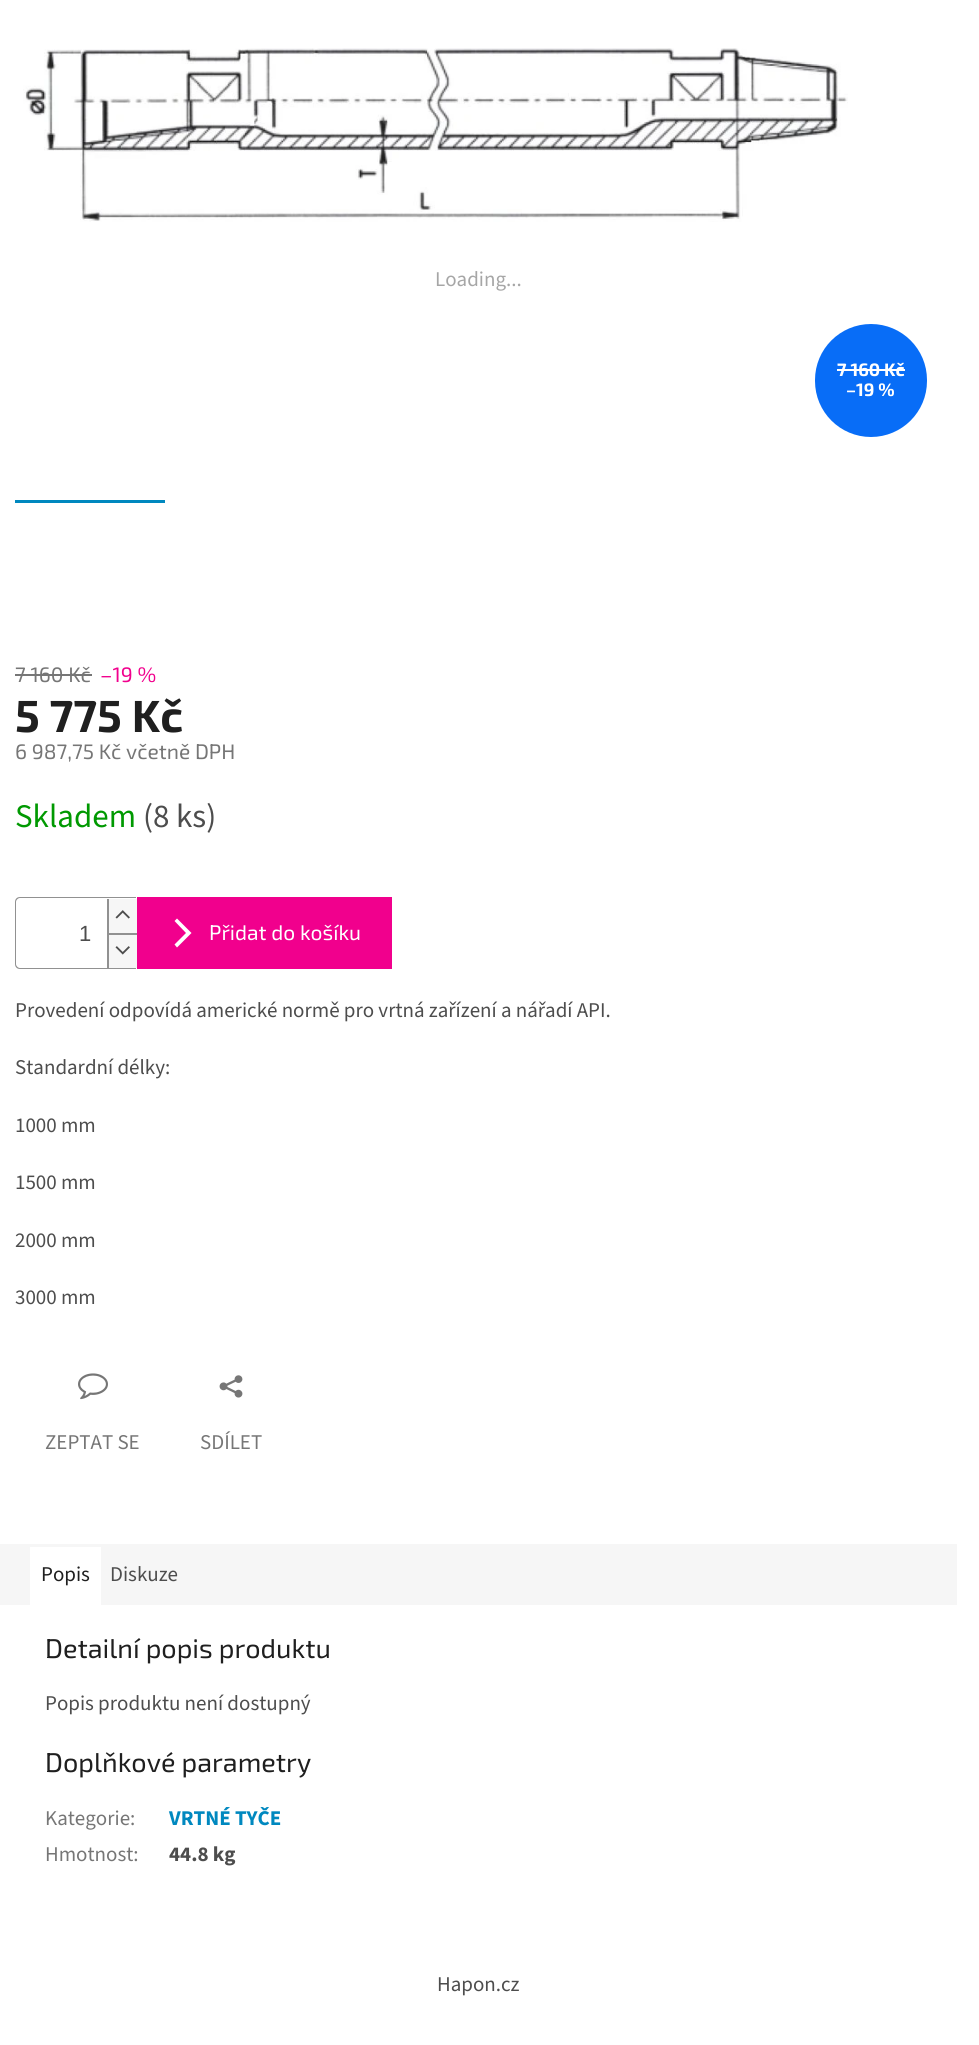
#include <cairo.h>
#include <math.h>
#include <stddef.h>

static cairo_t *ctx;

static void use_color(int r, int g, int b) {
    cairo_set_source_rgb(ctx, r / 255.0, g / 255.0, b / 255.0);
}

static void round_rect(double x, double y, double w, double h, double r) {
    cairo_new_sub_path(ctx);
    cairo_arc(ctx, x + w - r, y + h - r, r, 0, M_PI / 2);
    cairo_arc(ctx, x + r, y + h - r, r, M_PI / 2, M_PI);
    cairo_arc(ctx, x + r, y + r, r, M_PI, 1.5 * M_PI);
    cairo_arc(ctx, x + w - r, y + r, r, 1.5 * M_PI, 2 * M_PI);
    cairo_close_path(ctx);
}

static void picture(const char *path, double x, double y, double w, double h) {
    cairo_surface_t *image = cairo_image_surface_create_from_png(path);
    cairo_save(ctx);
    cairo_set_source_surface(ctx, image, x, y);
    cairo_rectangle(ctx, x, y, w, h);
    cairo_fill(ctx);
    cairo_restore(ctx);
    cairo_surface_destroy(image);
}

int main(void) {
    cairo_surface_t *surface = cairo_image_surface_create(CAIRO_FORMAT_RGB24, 979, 2045);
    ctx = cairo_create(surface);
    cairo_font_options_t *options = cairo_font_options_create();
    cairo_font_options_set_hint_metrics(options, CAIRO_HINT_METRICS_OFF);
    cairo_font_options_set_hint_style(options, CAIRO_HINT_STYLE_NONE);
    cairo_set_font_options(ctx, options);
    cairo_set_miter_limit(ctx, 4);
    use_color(255, 255, 255);
    cairo_paint(ctx);
    picture("img1.png", 23, 48, 825, 174);
    cairo_select_font_face(ctx, "Source Sans 3", CAIRO_FONT_SLANT_NORMAL, CAIRO_FONT_WEIGHT_NORMAL);
    cairo_set_font_size(ctx, 21);
    use_color(166, 166, 166);
    cairo_move_to(ctx, 435, 286);
    cairo_show_text(ctx, "Loading...");
    use_color(8, 109, 247);
    round_rect(815, 324, 112, 113, 56);
    cairo_fill(ctx);
    cairo_select_font_face(ctx, "Exo 2", CAIRO_FONT_SLANT_NORMAL, CAIRO_FONT_WEIGHT_BOLD);
    cairo_set_font_size(ctx, 18);
    use_color(255, 255, 255);
    cairo_move_to(ctx, 837, 376);
    cairo_show_text(ctx, "7 160 Kč");
    cairo_rectangle(ctx, 837, 369, 68, 2);
    cairo_fill(ctx);
    cairo_move_to(ctx, 846, 396);
    cairo_show_text(ctx, "–19 %");
    use_color(0, 136, 191);
    cairo_rectangle(ctx, 15, 500, 150, 3);
    cairo_fill(ctx);
    cairo_select_font_face(ctx, "Exo 2", CAIRO_FONT_SLANT_NORMAL, CAIRO_FONT_WEIGHT_NORMAL);
    cairo_set_font_size(ctx, 21);
    use_color(118, 118, 118);
    cairo_move_to(ctx, 15, 682);
    cairo_show_text(ctx, "7 160 Kč");
    cairo_rectangle(ctx, 15, 674, 77, 2);
    cairo_fill(ctx);
    use_color(241, 0, 141);
    cairo_move_to(ctx, 100, 682);
    cairo_show_text(ctx, "–19 %");
    cairo_select_font_face(ctx, "Exo 2", CAIRO_FONT_SLANT_NORMAL, CAIRO_FONT_WEIGHT_BOLD);
    cairo_set_font_size(ctx, 45);
    use_color(31, 31, 31);
    cairo_move_to(ctx, 15, 732);
    cairo_show_text(ctx, "5 775 Kč");
    cairo_select_font_face(ctx, "Exo 2", CAIRO_FONT_SLANT_NORMAL, CAIRO_FONT_WEIGHT_NORMAL);
    cairo_set_font_size(ctx, 21);
    use_color(118, 118, 118);
    cairo_move_to(ctx, 15, 759);
    cairo_show_text(ctx, "6 987,75 Kč včetně DPH");
    cairo_select_font_face(ctx, "Source Sans 3", CAIRO_FONT_SLANT_NORMAL, CAIRO_FONT_WEIGHT_NORMAL);
    cairo_set_font_size(ctx, 33);
    use_color(0, 153, 1);
    cairo_move_to(ctx, 15, 827);
    cairo_show_text(ctx, "Skladem");
    use_color(77, 77, 77);
    cairo_move_to(ctx, 143, 827);
    cairo_show_text(ctx, "(8 ks)");
    use_color(145, 145, 145);
    cairo_set_fill_rule(ctx, CAIRO_FILL_RULE_EVEN_ODD);
    cairo_new_path(ctx);
    cairo_move_to(ctx, 20, 897);
    cairo_line_to(ctx, 136, 897);
    cairo_line_to(ctx, 136, 969);
    cairo_line_to(ctx, 20, 969);
    cairo_curve_to(ctx, 17, 969, 15, 967, 15, 964);
    cairo_line_to(ctx, 15, 902);
    cairo_curve_to(ctx, 15, 899, 17, 897, 20, 897);
    cairo_close_path(ctx);
    cairo_move_to(ctx, 20, 898);
    cairo_line_to(ctx, 136, 898);
    cairo_line_to(ctx, 136, 968);
    cairo_line_to(ctx, 20, 968);
    cairo_curve_to(ctx, 18, 968, 16, 966, 16, 964);
    cairo_line_to(ctx, 16, 902);
    cairo_curve_to(ctx, 16, 900, 18, 898, 20, 898);
    cairo_close_path(ctx);
    cairo_fill(ctx);
    cairo_select_font_face(ctx, "Liberation Sans", CAIRO_FONT_SLANT_NORMAL, CAIRO_FONT_WEIGHT_NORMAL);
    cairo_set_font_size(ctx, 22);
    use_color(77, 77, 77);
    cairo_move_to(ctx, 79, 941);
    cairo_show_text(ctx, "1");
    use_color(246, 246, 246);
    cairo_rectangle(ctx, 109, 899, 28, 34);
    cairo_fill(ctx);
    use_color(145, 145, 145);
    cairo_rectangle(ctx, 107, 899, 2, 34);
    cairo_fill(ctx);
    picture("img2.png", 115, 910, 15, 9);
    use_color(246, 246, 246);
    cairo_rectangle(ctx, 109, 935, 28, 33);
    cairo_fill(ctx);
    use_color(145, 145, 145);
    cairo_rectangle(ctx, 107, 933, 30, 2);
    cairo_fill(ctx);
    cairo_rectangle(ctx, 107, 933, 2, 35);
    cairo_fill(ctx);
    picture("img3.png", 115, 946, 15, 9);
    use_color(241, 0, 141);
    cairo_rectangle(ctx, 137, 897, 255, 72);
    cairo_fill(ctx);
    use_color(255, 255, 255);
    cairo_set_fill_rule(ctx, CAIRO_FILL_RULE_WINDING);
    cairo_new_path(ctx);
    cairo_move_to(ctx, 177, 947.5);
    cairo_line_to(ctx, 174.5, 944.5);
    cairo_line_to(ctx, 186, 933);
    cairo_line_to(ctx, 174.5, 921);
    cairo_line_to(ctx, 177, 918.5);
    cairo_line_to(ctx, 191.5, 933);
    cairo_close_path(ctx);
    cairo_fill(ctx);
    cairo_select_font_face(ctx, "Exo 2", CAIRO_FONT_SLANT_NORMAL, CAIRO_FONT_WEIGHT_NORMAL);
    cairo_set_font_size(ctx, 21);
    cairo_move_to(ctx, 209, 940);
    cairo_show_text(ctx, "Přidat do košíku");
    cairo_select_font_face(ctx, "Source Sans 3", CAIRO_FONT_SLANT_NORMAL, CAIRO_FONT_WEIGHT_NORMAL);
    use_color(77, 77, 77);
    cairo_move_to(ctx, 15, 1017);
    cairo_show_text(ctx, "Provedení odpovídá americké normě pro vrtná zařízení a nářadí API.");
    cairo_move_to(ctx, 15, 1074);
    cairo_show_text(ctx, "Standardní délky:");
    cairo_move_to(ctx, 15, 1132);
    cairo_show_text(ctx, "1000 mm");
    cairo_move_to(ctx, 15, 1189);
    cairo_show_text(ctx, "1500 mm");
    cairo_move_to(ctx, 15, 1247);
    cairo_show_text(ctx, "2000 mm");
    cairo_move_to(ctx, 15, 1304);
    cairo_show_text(ctx, "3000 mm");
    picture("img4.png", 78, 1373, 30, 27);
    use_color(118, 118, 118);
    cairo_move_to(ctx, 45, 1449);
    cairo_show_text(ctx, "ZEPTAT SE");
    picture("img5.png", 219, 1375, 24, 23);
    cairo_move_to(ctx, 200, 1449);
    cairo_show_text(ctx, "SDÍLET");
    use_color(246, 246, 246);
    cairo_rectangle(ctx, 0, 1544, 957, 61);
    cairo_fill(ctx);
    use_color(255, 255, 255);
    cairo_rectangle(ctx, 30, 1547, 71, 58);
    cairo_fill(ctx);
    use_color(31, 31, 31);
    cairo_move_to(ctx, 41, 1581);
    cairo_show_text(ctx, "Popis");
    use_color(77, 77, 77);
    cairo_move_to(ctx, 110, 1581);
    cairo_show_text(ctx, "Diskuze");
    cairo_select_font_face(ctx, "Exo 2", CAIRO_FONT_SLANT_NORMAL, CAIRO_FONT_WEIGHT_NORMAL);
    cairo_set_font_size(ctx, 27);
    use_color(31, 31, 31);
    cairo_move_to(ctx, 45, 1658);
    cairo_show_text(ctx, "Detailní popis produktu");
    cairo_select_font_face(ctx, "Source Sans 3", CAIRO_FONT_SLANT_NORMAL, CAIRO_FONT_WEIGHT_NORMAL);
    cairo_set_font_size(ctx, 21);
    use_color(77, 77, 77);
    cairo_move_to(ctx, 45, 1710);
    cairo_show_text(ctx, "Popis produktu není dostupný");
    cairo_select_font_face(ctx, "Exo 2", CAIRO_FONT_SLANT_NORMAL, CAIRO_FONT_WEIGHT_NORMAL);
    cairo_set_font_size(ctx, 27);
    use_color(31, 31, 31);
    cairo_move_to(ctx, 45, 1772);
    cairo_show_text(ctx, "Doplňkové parametry");
    cairo_select_font_face(ctx, "Source Sans 3", CAIRO_FONT_SLANT_NORMAL, CAIRO_FONT_WEIGHT_NORMAL);
    cairo_set_font_size(ctx, 21);
    use_color(118, 118, 118);
    cairo_move_to(ctx, 45, 1825);
    cairo_show_text(ctx, "Kategorie:");
    cairo_select_font_face(ctx, "Source Sans 3", CAIRO_FONT_SLANT_NORMAL, CAIRO_FONT_WEIGHT_BOLD);
    use_color(0, 136, 191);
    cairo_move_to(ctx, 169, 1825);
    cairo_show_text(ctx, "VRTNÉ TYČE");
    cairo_select_font_face(ctx, "Source Sans 3", CAIRO_FONT_SLANT_NORMAL, CAIRO_FONT_WEIGHT_NORMAL);
    use_color(118, 118, 118);
    cairo_move_to(ctx, 45, 1861);
    cairo_show_text(ctx, "Hmotnost:");
    cairo_select_font_face(ctx, "Source Sans 3", CAIRO_FONT_SLANT_NORMAL, CAIRO_FONT_WEIGHT_BOLD);
    use_color(77, 77, 77);
    cairo_move_to(ctx, 169, 1861);
    cairo_show_text(ctx, "44.8 kg");
    cairo_select_font_face(ctx, "Source Sans 3", CAIRO_FONT_SLANT_NORMAL, CAIRO_FONT_WEIGHT_NORMAL);
    cairo_move_to(ctx, 437, 1991);
    cairo_show_text(ctx, "Hapon.cz");
    cairo_surface_write_to_png(surface, "result.png");
    cairo_font_options_destroy(options);
    cairo_destroy(ctx);
    cairo_surface_destroy(surface);
    return 0;
}
